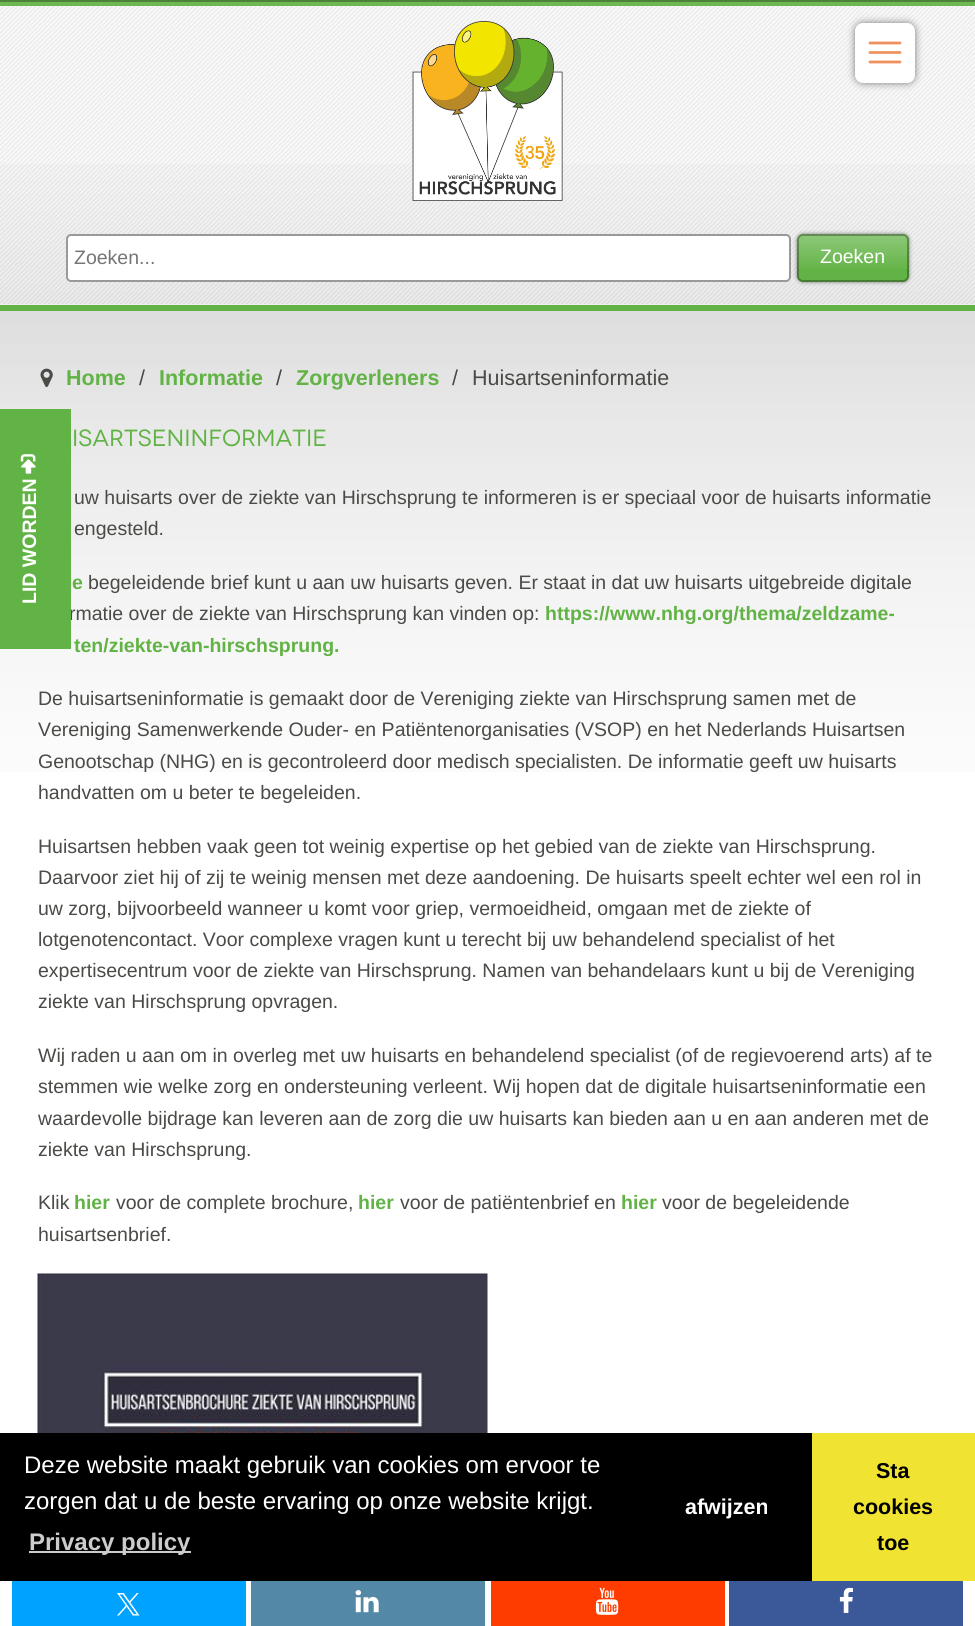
#include <cairo.h>
#include <math.h>
#include <stddef.h>

static cairo_t *ctx;

static void use_color(int r, int g, int b) {
    cairo_set_source_rgb(ctx, r / 255.0, g / 255.0, b / 255.0);
}

static void round_rect(double x, double y, double w, double h, double r) {
    cairo_new_sub_path(ctx);
    cairo_arc(ctx, x + w - r, y + h - r, r, 0, M_PI / 2);
    cairo_arc(ctx, x + r, y + h - r, r, M_PI / 2, M_PI);
    cairo_arc(ctx, x + r, y + r, r, M_PI, 1.5 * M_PI);
    cairo_arc(ctx, x + w - r, y + r, r, 1.5 * M_PI, 2 * M_PI);
    cairo_close_path(ctx);
}

static void shadow(double x, double y, double w, double h, double r, double blur, double alpha) {
    cairo_push_group_with_content(ctx, CAIRO_CONTENT_ALPHA);
    cairo_set_operator(ctx, CAIRO_OPERATOR_SOURCE);
    for (int i = 15; i >= -15 && fmin(w, h) + blur * i / 3 > 0; i -= 2) {
        double e = blur * i / 6;
        cairo_set_source_rgba(ctx, 0, 0, 0, alpha * erfc((i - 1) / 8.5) / 2);
        round_rect(x - e, y - e, w + 2 * e, h + 2 * e, fmax(0, fmin(r + e + blur * .6, fmin(w, h) / 2 + e)));
        cairo_fill(ctx);
    }
    cairo_pattern_t *soft = cairo_pop_group(ctx);
    cairo_mask(ctx, soft);
    cairo_pattern_destroy(soft);
}

static void picture(const char *path, double x, double y, double w, double h) {
    cairo_surface_t *image = cairo_image_surface_create_from_png(path);
    cairo_save(ctx);
    cairo_set_source_surface(ctx, image, x, y);
    cairo_rectangle(ctx, x, y, w, h);
    cairo_fill(ctx);
    cairo_restore(ctx);
    cairo_surface_destroy(image);
}

int main(void) {
    cairo_surface_t *surface = cairo_image_surface_create(CAIRO_FORMAT_RGB24, 975, 1626);
    ctx = cairo_create(surface);
    cairo_font_options_t *options = cairo_font_options_create();
    cairo_font_options_set_hint_metrics(options, CAIRO_HINT_METRICS_OFF);
    cairo_font_options_set_hint_style(options, CAIRO_HINT_STYLE_NONE);
    cairo_set_font_options(ctx, options);
    cairo_set_miter_limit(ctx, 4);
    use_color(255, 255, 255);
    cairo_paint(ctx);
    use_color(98, 179, 69);
    cairo_rectangle(ctx, 0, 0, 975, 311);
    cairo_fill(ctx);
    picture("img1.png", 0, 0, 975, 6);
    cairo_set_source_rgba(ctx, 0, 0, 0, 0.3);
    cairo_rectangle(ctx, 0, 0, 975, 2);
    cairo_fill(ctx);
    use_color(251, 251, 251);
    cairo_rectangle(ctx, 0, 6, 975, 299);
    cairo_fill(ctx);
    picture("img2.png", 0, 164, 975, 141);
    picture("img3.png", 0, 6, 975, 299);
    picture("img4.png", 412, 21, 151, 180);
    use_color(0, 0, 0);
    shadow(855, 23, 60, 60, 8, 4, 0.5);
    use_color(255, 255, 255);
    round_rect(855, 23, 60, 60, 8);
    cairo_fill(ctx);
    cairo_new_path(ctx);
    cairo_move_to(ctx, 900, 43);
    cairo_line_to(ctx, 870, 43);
    cairo_move_to(ctx, 900, 52.5);
    cairo_line_to(ctx, 870, 52.5);
    cairo_move_to(ctx, 900, 62);
    cairo_line_to(ctx, 870, 62);
    use_color(239, 145, 94);
    cairo_set_line_width(ctx, 2.8);
    cairo_set_line_cap(ctx, CAIRO_LINE_CAP_ROUND);
    cairo_stroke(ctx);
    use_color(0, 0, 0);
    shadow(797, 234, 112, 48, 6, 2, 0.5);
    use_color(255, 255, 255);
    round_rect(67, 235, 723, 46, 4);
    cairo_fill_preserve(ctx);
    use_color(153, 153, 153);
    cairo_set_line_width(ctx, 2);
    cairo_set_line_cap(ctx, CAIRO_LINE_CAP_BUTT);
    cairo_stroke(ctx);
    cairo_select_font_face(ctx, "Liberation Sans", CAIRO_FONT_SLANT_NORMAL, CAIRO_FONT_WEIGHT_NORMAL);
    cairo_set_font_size(ctx, 19.5);
    use_color(117, 117, 117);
    cairo_move_to(ctx, 74, 264);
    cairo_show_text(ctx, "Zoeken...");
    use_color(98, 179, 69);
    round_rect(797, 234, 112, 48, 6);
    cairo_fill(ctx);
    picture("img5.png", 797, 234, 112, 35);
    round_rect(798, 235, 110, 46, 5);
    cairo_set_source_rgba(ctx, 0, 0, 0, 0.3);
    cairo_stroke(ctx);
    use_color(255, 255, 255);
    cairo_move_to(ctx, 820, 263);
    cairo_show_text(ctx, "Zoeken");
    picture("img11.png", 0, 311, 975, 461);
    use_color(76, 74, 71);
    cairo_move_to(ctx, 69, 620);
    cairo_show_text(ctx, "rmatie over de ziekte van Hirschsprung kan vinden op:");
    use_color(98, 179, 69);
    cairo_rectangle(ctx, 0, 409, 71, 240);
    cairo_fill(ctx);
    picture("img6.png", 20, 454, 16, 20);
    cairo_select_font_face(ctx, "Liberation Sans", CAIRO_FONT_SLANT_NORMAL, CAIRO_FONT_WEIGHT_BOLD);
    use_color(255, 255, 255);
    cairo_save(ctx);
    cairo_translate(ctx, 36, 604);
    cairo_rotate(ctx, -90 * M_PI / 180);
    cairo_move_to(ctx, 0, 0);
    cairo_show_text(ctx, "LID WORDEN");
    cairo_restore(ctx);
    use_color(0, 162, 255);
    cairo_rectangle(ctx, 12, 1581, 234, 45);
    cairo_fill(ctx);
    picture("img7.png", 117, 1593, 23, 23);
    use_color(83, 136, 167);
    cairo_rectangle(ctx, 251, 1581, 234, 45);
    cairo_fill(ctx);
    picture("img8.png", 355, 1590, 24, 23);
    use_color(255, 60, 0);
    cairo_rectangle(ctx, 491, 1581, 234, 45);
    cairo_fill(ctx);
    picture("img9.png", 595, 1587, 24, 28);
    use_color(59, 89, 152);
    cairo_rectangle(ctx, 729, 1581, 234, 45);
    cairo_fill(ctx);
    picture("img10.png", 839, 1587, 14, 26);
    picture("img12.png", 40, 368, 13, 19);
    cairo_set_font_size(ctx, 21.5);
    use_color(98, 179, 69);
    cairo_move_to(ctx, 66, 385);
    cairo_show_text(ctx, "Home");
    cairo_select_font_face(ctx, "Liberation Sans", CAIRO_FONT_SLANT_NORMAL, CAIRO_FONT_WEIGHT_NORMAL);
    use_color(76, 74, 71);
    cairo_move_to(ctx, 139, 385);
    cairo_show_text(ctx, "/");
    cairo_select_font_face(ctx, "Liberation Sans", CAIRO_FONT_SLANT_NORMAL, CAIRO_FONT_WEIGHT_BOLD);
    use_color(98, 179, 69);
    cairo_move_to(ctx, 159, 385);
    cairo_show_text(ctx, "Informatie");
    cairo_select_font_face(ctx, "Liberation Sans", CAIRO_FONT_SLANT_NORMAL, CAIRO_FONT_WEIGHT_NORMAL);
    use_color(76, 74, 71);
    cairo_move_to(ctx, 276, 385);
    cairo_show_text(ctx, "/");
    cairo_select_font_face(ctx, "Liberation Sans", CAIRO_FONT_SLANT_NORMAL, CAIRO_FONT_WEIGHT_BOLD);
    use_color(98, 179, 69);
    cairo_move_to(ctx, 296, 385);
    cairo_show_text(ctx, "Zorgverleners");
    cairo_select_font_face(ctx, "Liberation Sans", CAIRO_FONT_SLANT_NORMAL, CAIRO_FONT_WEIGHT_NORMAL);
    use_color(76, 74, 71);
    cairo_move_to(ctx, 452, 385);
    cairo_show_text(ctx, "/");
    cairo_move_to(ctx, 472, 385);
    cairo_show_text(ctx, "Huisartseninformatie");
    cairo_select_font_face(ctx, "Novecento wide", CAIRO_FONT_SLANT_NORMAL, CAIRO_FONT_WEIGHT_NORMAL);
    cairo_set_font_size(ctx, 23.4);
    use_color(98, 179, 69);
    cairo_move_to(ctx, 72, 446);
    cairo_show_text(ctx, "isartseninformatie");
    cairo_select_font_face(ctx, "Liberation Sans", CAIRO_FONT_SLANT_NORMAL, CAIRO_FONT_WEIGHT_NORMAL);
    cairo_set_font_size(ctx, 19.5);
    use_color(76, 74, 71);
    cairo_move_to(ctx, 74, 504);
    cairo_show_text(ctx, "uw huisarts over de ziekte van Hirschsprung te informeren is er speciaal voor de huisarts informatie");
    cairo_move_to(ctx, 74, 535);
    cairo_show_text(ctx, "engesteld.");
    cairo_select_font_face(ctx, "Liberation Sans", CAIRO_FONT_SLANT_NORMAL, CAIRO_FONT_WEIGHT_BOLD);
    use_color(98, 179, 69);
    cairo_move_to(ctx, 72, 589);
    cairo_show_text(ctx, "e");
    cairo_select_font_face(ctx, "Liberation Sans", CAIRO_FONT_SLANT_NORMAL, CAIRO_FONT_WEIGHT_NORMAL);
    use_color(76, 74, 71);
    cairo_move_to(ctx, 88, 589);
    cairo_show_text(ctx, "begeleidende brief kunt u aan uw huisarts geven. Er staat in dat uw huisarts uitgebreide digitale");
    cairo_select_font_face(ctx, "Liberation Sans", CAIRO_FONT_SLANT_NORMAL, CAIRO_FONT_WEIGHT_BOLD);
    use_color(98, 179, 69);
    cairo_move_to(ctx, 545, 620);
    cairo_show_text(ctx, "https://www.nhg.org/thema/zeldzame-");
    cairo_move_to(ctx, 74, 652);
    cairo_show_text(ctx, "ten/ziekte-van-hirschsprung.");
    cairo_select_font_face(ctx, "Liberation Sans", CAIRO_FONT_SLANT_NORMAL, CAIRO_FONT_WEIGHT_NORMAL);
    use_color(76, 74, 71);
    cairo_move_to(ctx, 38, 705);
    cairo_show_text(ctx, "De huisartseninformatie is gemaakt door de Vereniging ziekte van Hirschsprung samen met de");
    cairo_move_to(ctx, 38, 736);
    cairo_show_text(ctx, "Vereniging Samenwerkende Ouder- en Patiëntenorganisaties (VSOP) en het Nederlands Huisartsen");
    cairo_move_to(ctx, 38, 768);
    cairo_show_text(ctx, "Genootschap (NHG) en is gecontroleerd door medisch specialisten. De informatie geeft uw huisarts");
    cairo_move_to(ctx, 38, 799);
    cairo_show_text(ctx, "handvatten om u beter te begeleiden.");
    cairo_move_to(ctx, 38, 853);
    cairo_show_text(ctx, "Huisartsen hebben vaak geen tot weinig expertise op het gebied van de ziekte van Hirschsprung.");
    cairo_move_to(ctx, 38, 884);
    cairo_show_text(ctx, "Daarvoor ziet hij of zij te weinig mensen met deze aandoening. De huisarts speelt echter wel een rol in");
    cairo_move_to(ctx, 38, 915);
    cairo_show_text(ctx, "uw zorg, bijvoorbeeld wanneer u komt voor griep, vermoeidheid, omgaan met de ziekte of");
    cairo_move_to(ctx, 38, 946);
    cairo_show_text(ctx, "lotgenotencontact. Voor complexe vragen kunt u terecht bij uw behandelend specialist of het");
    cairo_move_to(ctx, 38, 977);
    cairo_show_text(ctx, "expertisecentrum voor de ziekte van Hirschsprung. Namen van behandelaars kunt u bij de Vereniging");
    cairo_move_to(ctx, 38, 1008);
    cairo_show_text(ctx, "ziekte van Hirschsprung opvragen.");
    cairo_move_to(ctx, 38, 1062);
    cairo_show_text(ctx, "Wij raden u aan om in overleg met uw huisarts en behandelend specialist (of de regievoerend arts) af te");
    cairo_move_to(ctx, 38, 1093);
    cairo_show_text(ctx, "stemmen wie welke zorg en ondersteuning verleent. Wij hopen dat de digitale huisartseninformatie een");
    cairo_move_to(ctx, 38, 1125);
    cairo_show_text(ctx, "waardevolle bijdrage kan leveren aan de zorg die uw huisarts kan bieden aan u en aan anderen met de");
    cairo_move_to(ctx, 38, 1156);
    cairo_show_text(ctx, "ziekte van Hirschsprung.");
    cairo_move_to(ctx, 38, 1209);
    cairo_show_text(ctx, "Klik");
    cairo_select_font_face(ctx, "Liberation Sans", CAIRO_FONT_SLANT_NORMAL, CAIRO_FONT_WEIGHT_BOLD);
    use_color(98, 179, 69);
    cairo_move_to(ctx, 74, 1209);
    cairo_show_text(ctx, "hier");
    cairo_select_font_face(ctx, "Liberation Sans", CAIRO_FONT_SLANT_NORMAL, CAIRO_FONT_WEIGHT_NORMAL);
    use_color(76, 74, 71);
    cairo_move_to(ctx, 116, 1209);
    cairo_show_text(ctx, "voor de complete brochure,");
    cairo_select_font_face(ctx, "Liberation Sans", CAIRO_FONT_SLANT_NORMAL, CAIRO_FONT_WEIGHT_BOLD);
    use_color(98, 179, 69);
    cairo_move_to(ctx, 358, 1209);
    cairo_show_text(ctx, "hier");
    cairo_select_font_face(ctx, "Liberation Sans", CAIRO_FONT_SLANT_NORMAL, CAIRO_FONT_WEIGHT_NORMAL);
    use_color(76, 74, 71);
    cairo_move_to(ctx, 400, 1209);
    cairo_show_text(ctx, "voor de patiëntenbrief en");
    cairo_select_font_face(ctx, "Liberation Sans", CAIRO_FONT_SLANT_NORMAL, CAIRO_FONT_WEIGHT_BOLD);
    use_color(98, 179, 69);
    cairo_move_to(ctx, 621, 1209);
    cairo_show_text(ctx, "hier");
    cairo_select_font_face(ctx, "Liberation Sans", CAIRO_FONT_SLANT_NORMAL, CAIRO_FONT_WEIGHT_NORMAL);
    use_color(76, 74, 71);
    cairo_move_to(ctx, 662, 1209);
    cairo_show_text(ctx, "voor de begeleidende");
    cairo_move_to(ctx, 38, 1241);
    cairo_show_text(ctx, "huisartsenbrief.");
    picture("img13.png", 37, 1273, 451, 160);
    use_color(0, 0, 0);
    cairo_rectangle(ctx, 0, 1433, 812, 148);
    cairo_fill(ctx);
    cairo_set_font_size(ctx, 24);
    use_color(255, 255, 255);
    cairo_move_to(ctx, 24, 1473);
    cairo_show_text(ctx, "Deze website maakt gebruik van cookies om ervoor te");
    cairo_move_to(ctx, 24, 1509);
    cairo_show_text(ctx, "zorgen dat u de beste ervaring op onze website krijgt.");
    use_color(204, 204, 204);
    cairo_rectangle(ctx, 29, 1551, 162, 2);
    cairo_fill(ctx);
    cairo_select_font_face(ctx, "Liberation Sans", CAIRO_FONT_SLANT_NORMAL, CAIRO_FONT_WEIGHT_BOLD);
    cairo_move_to(ctx, 29, 1550);
    cairo_show_text(ctx, "Privacy policy");
    cairo_set_font_size(ctx, 21.5);
    use_color(255, 255, 255);
    cairo_move_to(ctx, 685, 1514);
    cairo_show_text(ctx, "afwijzen");
    use_color(241, 227, 50);
    cairo_rectangle(ctx, 812, 1433, 163, 148);
    cairo_fill(ctx);
    use_color(0, 0, 0);
    cairo_move_to(ctx, 876, 1478);
    cairo_show_text(ctx, "Sta");
    cairo_move_to(ctx, 853, 1514);
    cairo_show_text(ctx, "cookies");
    cairo_move_to(ctx, 877, 1550);
    cairo_show_text(ctx, "toe");
    cairo_surface_write_to_png(surface, "result.png");
    cairo_font_options_destroy(options);
    cairo_destroy(ctx);
    cairo_surface_destroy(surface);
    return 0;
}
